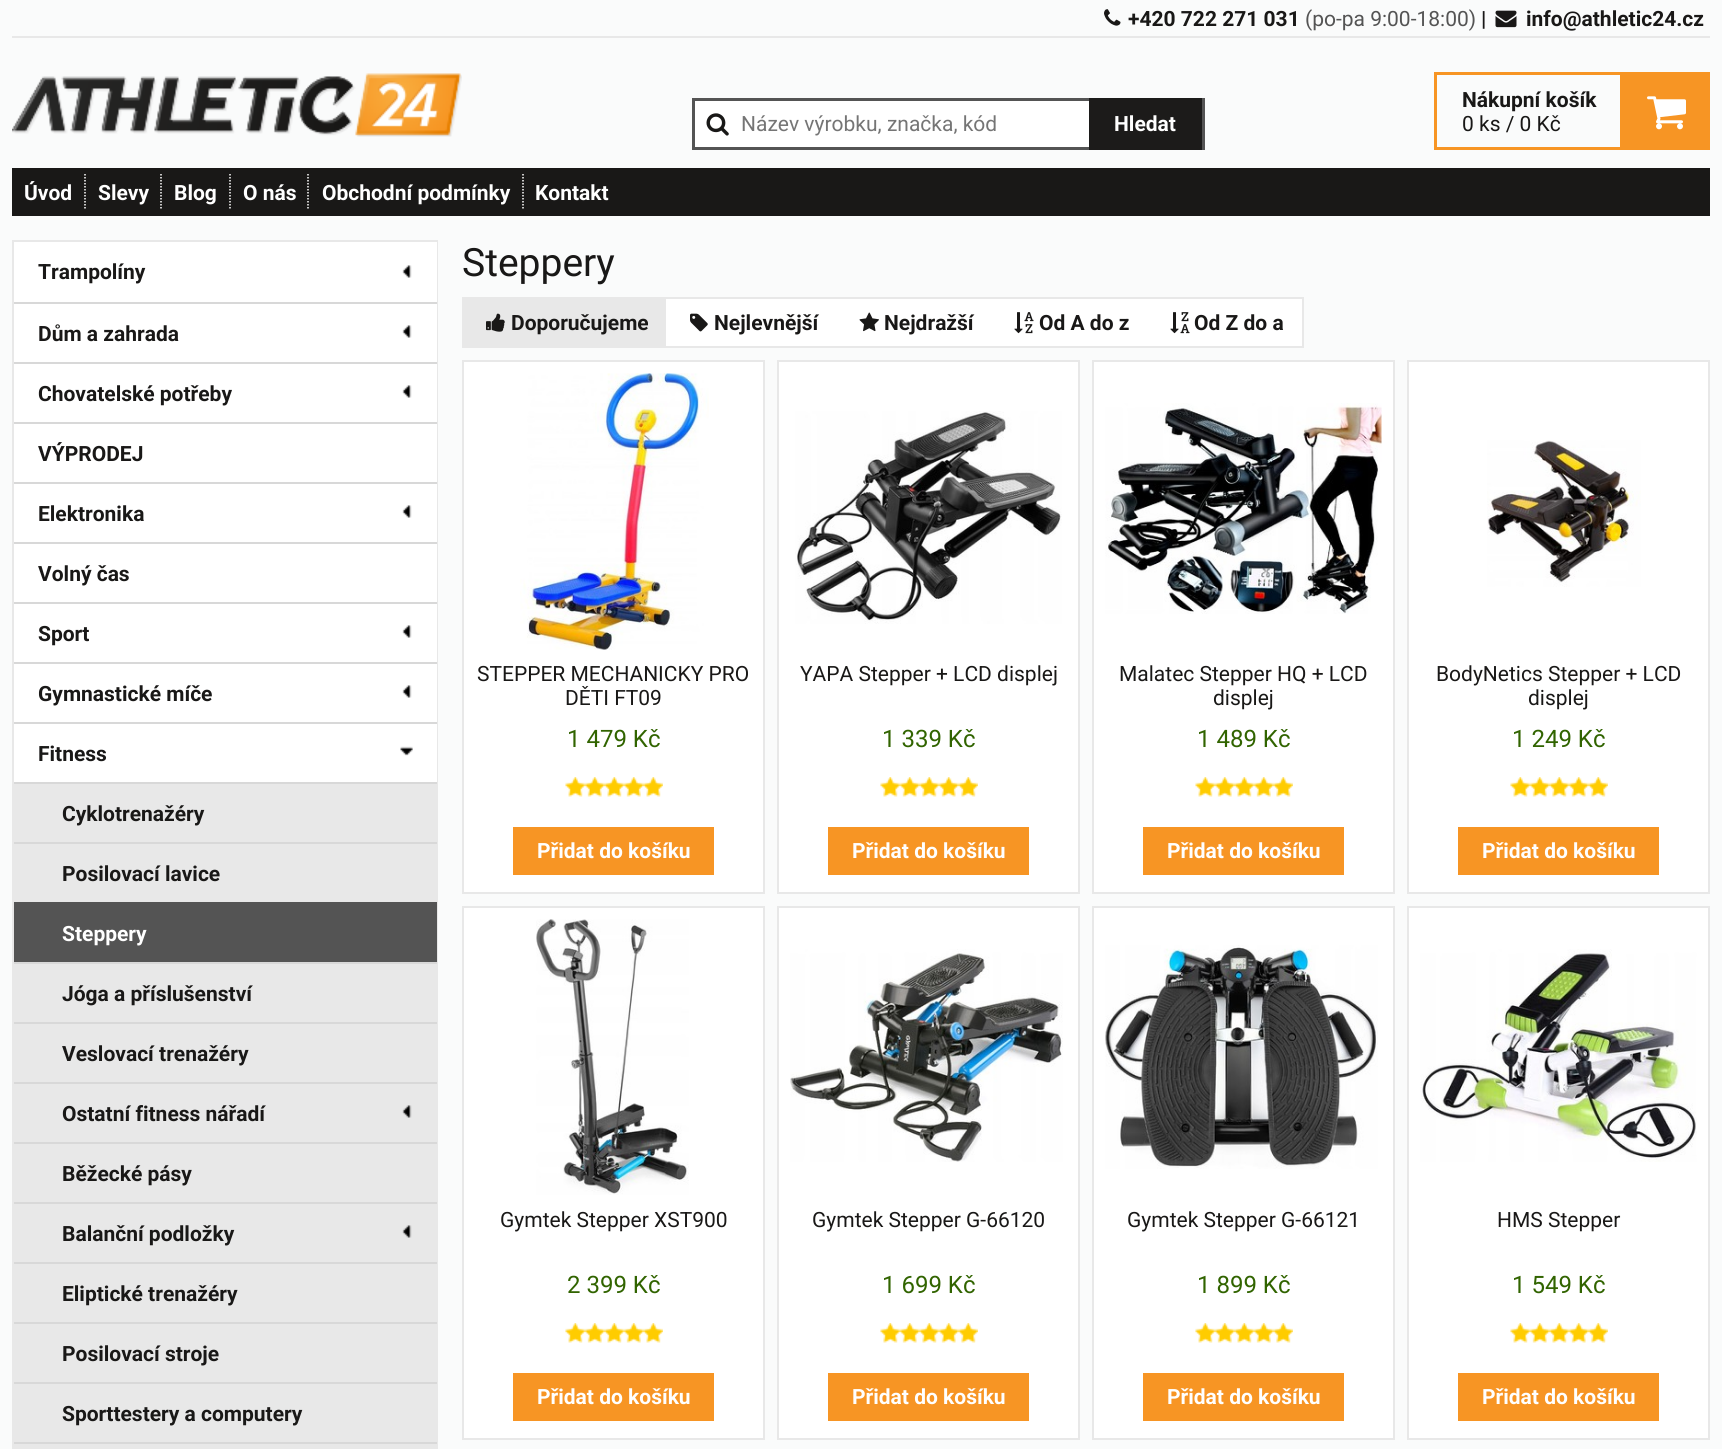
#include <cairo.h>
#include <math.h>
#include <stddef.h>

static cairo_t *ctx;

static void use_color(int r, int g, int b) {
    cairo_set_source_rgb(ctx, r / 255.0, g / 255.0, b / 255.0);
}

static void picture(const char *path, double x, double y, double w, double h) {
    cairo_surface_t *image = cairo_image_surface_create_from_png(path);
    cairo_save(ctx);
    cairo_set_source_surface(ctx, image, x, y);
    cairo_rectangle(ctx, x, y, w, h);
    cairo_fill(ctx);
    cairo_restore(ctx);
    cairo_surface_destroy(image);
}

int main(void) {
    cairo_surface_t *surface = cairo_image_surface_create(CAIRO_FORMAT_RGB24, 1722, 1449);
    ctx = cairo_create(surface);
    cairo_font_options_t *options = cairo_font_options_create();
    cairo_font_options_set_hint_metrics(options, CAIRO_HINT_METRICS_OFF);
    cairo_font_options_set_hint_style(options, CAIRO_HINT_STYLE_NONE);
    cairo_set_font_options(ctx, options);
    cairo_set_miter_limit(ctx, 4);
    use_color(250, 251, 251);
    cairo_paint(ctx);
    use_color(232, 232, 232);
    cairo_rectangle(ctx, 12, 36, 1698, 2);
    cairo_fill(ctx);
    picture("img1.png", 1104, 9, 17, 17);
    cairo_select_font_face(ctx, "Roboto", CAIRO_FONT_SLANT_NORMAL, CAIRO_FONT_WEIGHT_BOLD);
    cairo_set_font_size(ctx, 21);
    use_color(25, 24, 23);
    cairo_move_to(ctx, 1128, 26);
    cairo_show_text(ctx, "+420 722 271 031");
    cairo_select_font_face(ctx, "Roboto", CAIRO_FONT_SLANT_NORMAL, CAIRO_FONT_WEIGHT_NORMAL);
    use_color(84, 84, 84);
    cairo_move_to(ctx, 1305, 26);
    cairo_show_text(ctx, "(po-pa 9:00-18:00)");
    cairo_select_font_face(ctx, "Roboto", CAIRO_FONT_SLANT_NORMAL, CAIRO_FONT_WEIGHT_BOLD);
    use_color(25, 24, 23);
    cairo_move_to(ctx, 1481, 26);
    cairo_show_text(ctx, "|");
    picture("img2.png", 1495, 10, 22, 18);
    cairo_move_to(ctx, 1526, 26);
    cairo_show_text(ctx, "info@athletic24.cz");
    picture("img3.png", 12, 73, 450, 64);
    use_color(255, 255, 255);
    cairo_rectangle(ctx, 695, 101, 394, 46);
    cairo_fill(ctx);
    cairo_rectangle(ctx, 693.5, 99.5, 510, 49);
    use_color(84, 84, 84);
    cairo_set_line_width(ctx, 3);
    cairo_stroke(ctx);
    picture("img4.png", 706, 113, 23, 23);
    cairo_select_font_face(ctx, "Roboto", CAIRO_FONT_SLANT_NORMAL, CAIRO_FONT_WEIGHT_NORMAL);
    use_color(117, 117, 117);
    cairo_move_to(ctx, 741, 131);
    cairo_show_text(ctx, "Název výrobku, značka, kód");
    use_color(28, 27, 26);
    cairo_rectangle(ctx, 1089, 98, 113, 52);
    cairo_fill(ctx);
    cairo_select_font_face(ctx, "Roboto", CAIRO_FONT_SLANT_NORMAL, CAIRO_FONT_WEIGHT_BOLD);
    use_color(255, 255, 255);
    cairo_move_to(ctx, 1114, 131);
    cairo_show_text(ctx, "Hledat");
    cairo_rectangle(ctx, 1435.5, 73.5, 186, 75);
    use_color(247, 149, 36);
    cairo_stroke(ctx);
    use_color(25, 24, 23);
    cairo_move_to(ctx, 1462, 107);
    cairo_show_text(ctx, "Nákupní košík");
    cairo_select_font_face(ctx, "Roboto", CAIRO_FONT_SLANT_NORMAL, CAIRO_FONT_WEIGHT_NORMAL);
    cairo_move_to(ctx, 1462, 131);
    cairo_show_text(ctx, "0 ks / 0 Kč");
    use_color(247, 149, 36);
    cairo_rectangle(ctx, 1623, 72, 87, 78);
    cairo_fill(ctx);
    picture("img5.png", 1647, 96, 39, 34);
    use_color(25, 24, 23);
    cairo_rectangle(ctx, 12, 168, 1698, 48);
    cairo_fill(ctx);
    cairo_select_font_face(ctx, "Roboto", CAIRO_FONT_SLANT_NORMAL, CAIRO_FONT_WEIGHT_BOLD);
    use_color(255, 255, 255);
    cairo_move_to(ctx, 24, 200);
    cairo_show_text(ctx, "Úvod");
    cairo_new_path(ctx);
    cairo_move_to(ctx, 85, 174);
    cairo_line_to(ctx, 85, 210);
    cairo_set_line_width(ctx, 1.5);
    cairo_set_dash(ctx, (double[]){1.5, 1.5}, 2, 0);
    cairo_stroke(ctx);
    cairo_move_to(ctx, 98, 200);
    cairo_show_text(ctx, "Slevy");
    cairo_new_path(ctx);
    cairo_move_to(ctx, 161, 174);
    cairo_line_to(ctx, 161, 210);
    cairo_stroke(ctx);
    cairo_move_to(ctx, 174, 200);
    cairo_show_text(ctx, "Blog");
    cairo_new_path(ctx);
    cairo_move_to(ctx, 230, 174);
    cairo_line_to(ctx, 230, 210);
    cairo_stroke(ctx);
    cairo_move_to(ctx, 243, 200);
    cairo_show_text(ctx, "O nás");
    cairo_new_path(ctx);
    cairo_move_to(ctx, 308, 174);
    cairo_line_to(ctx, 308, 210);
    cairo_stroke(ctx);
    cairo_move_to(ctx, 322, 200);
    cairo_show_text(ctx, "Obchodní podmínky");
    cairo_new_path(ctx);
    cairo_move_to(ctx, 523, 174);
    cairo_line_to(ctx, 523, 210);
    cairo_stroke(ctx);
    cairo_move_to(ctx, 535, 200);
    cairo_show_text(ctx, "Kontakt");
    cairo_rectangle(ctx, 13, 241, 424, 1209);
    use_color(232, 232, 232);
    cairo_set_line_width(ctx, 2);
    cairo_set_dash(ctx, NULL, 0, 0);
    cairo_stroke(ctx);
    use_color(255, 255, 255);
    cairo_rectangle(ctx, 14, 242, 423, 60);
    cairo_fill(ctx);
    use_color(25, 24, 23);
    cairo_move_to(ctx, 38, 279);
    cairo_show_text(ctx, "Trampolíny");
    picture("img6.png", 402, 265, 10, 13);
    use_color(255, 255, 255);
    cairo_rectangle(ctx, 14, 304, 423, 58);
    cairo_fill(ctx);
    use_color(216, 216, 216);
    cairo_rectangle(ctx, 14, 302, 423, 2);
    cairo_fill(ctx);
    use_color(25, 24, 23);
    cairo_move_to(ctx, 38, 341);
    cairo_show_text(ctx, "Dům a zahrada");
    picture("img6.png", 402, 325, 10, 13);
    use_color(255, 255, 255);
    cairo_rectangle(ctx, 14, 364, 423, 58);
    cairo_fill(ctx);
    use_color(216, 216, 216);
    cairo_rectangle(ctx, 14, 362, 423, 2);
    cairo_fill(ctx);
    use_color(25, 24, 23);
    cairo_move_to(ctx, 38, 401);
    cairo_show_text(ctx, "Chovatelské potřeby");
    picture("img6.png", 402, 385, 10, 13);
    use_color(255, 255, 255);
    cairo_rectangle(ctx, 14, 424, 423, 58);
    cairo_fill(ctx);
    use_color(216, 216, 216);
    cairo_rectangle(ctx, 14, 422, 423, 2);
    cairo_fill(ctx);
    use_color(25, 24, 23);
    cairo_move_to(ctx, 38, 461);
    cairo_show_text(ctx, "VÝPRODEJ");
    use_color(255, 255, 255);
    cairo_rectangle(ctx, 14, 484, 423, 58);
    cairo_fill(ctx);
    use_color(216, 216, 216);
    cairo_rectangle(ctx, 14, 482, 423, 2);
    cairo_fill(ctx);
    use_color(25, 24, 23);
    cairo_move_to(ctx, 38, 521);
    cairo_show_text(ctx, "Elektronika");
    picture("img6.png", 402, 505, 10, 13);
    use_color(255, 255, 255);
    cairo_rectangle(ctx, 14, 544, 423, 58);
    cairo_fill(ctx);
    use_color(216, 216, 216);
    cairo_rectangle(ctx, 14, 542, 423, 2);
    cairo_fill(ctx);
    use_color(25, 24, 23);
    cairo_move_to(ctx, 38, 581);
    cairo_show_text(ctx, "Volný čas");
    use_color(255, 255, 255);
    cairo_rectangle(ctx, 14, 604, 423, 58);
    cairo_fill(ctx);
    use_color(216, 216, 216);
    cairo_rectangle(ctx, 14, 602, 423, 2);
    cairo_fill(ctx);
    use_color(25, 24, 23);
    cairo_move_to(ctx, 38, 641);
    cairo_show_text(ctx, "Sport");
    picture("img6.png", 402, 625, 10, 13);
    use_color(255, 255, 255);
    cairo_rectangle(ctx, 14, 664, 423, 58);
    cairo_fill(ctx);
    use_color(216, 216, 216);
    cairo_rectangle(ctx, 14, 662, 423, 2);
    cairo_fill(ctx);
    use_color(25, 24, 23);
    cairo_move_to(ctx, 38, 701);
    cairo_show_text(ctx, "Gymnastické míče");
    picture("img6.png", 402, 685, 10, 13);
    use_color(255, 255, 255);
    cairo_rectangle(ctx, 14, 724, 423, 58);
    cairo_fill(ctx);
    use_color(216, 216, 216);
    cairo_rectangle(ctx, 14, 722, 423, 2);
    cairo_fill(ctx);
    use_color(25, 24, 23);
    cairo_move_to(ctx, 38, 761);
    cairo_show_text(ctx, "Fitness");
    picture("img7.png", 400, 746, 13, 10);
    use_color(232, 232, 232);
    cairo_rectangle(ctx, 14, 784, 422, 58);
    cairo_fill(ctx);
    use_color(216, 216, 216);
    cairo_rectangle(ctx, 14, 782, 423, 2);
    cairo_fill(ctx);
    use_color(25, 24, 23);
    cairo_move_to(ctx, 62, 821);
    cairo_show_text(ctx, "Cyklotrenažéry");
    use_color(232, 232, 232);
    cairo_rectangle(ctx, 14, 844, 422, 58);
    cairo_fill(ctx);
    use_color(216, 216, 216);
    cairo_rectangle(ctx, 14, 842, 423, 2);
    cairo_fill(ctx);
    use_color(25, 24, 23);
    cairo_move_to(ctx, 62, 881);
    cairo_show_text(ctx, "Posilovací lavice");
    use_color(84, 84, 84);
    cairo_rectangle(ctx, 14, 902, 423, 60);
    cairo_fill(ctx);
    use_color(255, 255, 255);
    cairo_move_to(ctx, 62, 941);
    cairo_show_text(ctx, "Steppery");
    use_color(232, 232, 232);
    cairo_rectangle(ctx, 14, 964, 422, 58);
    cairo_fill(ctx);
    use_color(216, 216, 216);
    cairo_rectangle(ctx, 14, 962, 423, 2);
    cairo_fill(ctx);
    use_color(25, 24, 23);
    cairo_move_to(ctx, 62, 1001);
    cairo_show_text(ctx, "Jóga a příslušenství");
    use_color(232, 232, 232);
    cairo_rectangle(ctx, 14, 1024, 422, 58);
    cairo_fill(ctx);
    use_color(216, 216, 216);
    cairo_rectangle(ctx, 14, 1022, 423, 2);
    cairo_fill(ctx);
    use_color(25, 24, 23);
    cairo_move_to(ctx, 62, 1061);
    cairo_show_text(ctx, "Veslovací trenažéry");
    use_color(232, 232, 232);
    cairo_rectangle(ctx, 14, 1084, 422, 58);
    cairo_fill(ctx);
    use_color(216, 216, 216);
    cairo_rectangle(ctx, 14, 1082, 423, 2);
    cairo_fill(ctx);
    use_color(25, 24, 23);
    cairo_move_to(ctx, 62, 1121);
    cairo_show_text(ctx, "Ostatní fitness nářadí");
    picture("img8.png", 402, 1105, 10, 13);
    use_color(232, 232, 232);
    cairo_rectangle(ctx, 14, 1144, 422, 58);
    cairo_fill(ctx);
    use_color(216, 216, 216);
    cairo_rectangle(ctx, 14, 1142, 423, 2);
    cairo_fill(ctx);
    use_color(25, 24, 23);
    cairo_move_to(ctx, 62, 1181);
    cairo_show_text(ctx, "Běžecké pásy");
    use_color(232, 232, 232);
    cairo_rectangle(ctx, 14, 1204, 422, 58);
    cairo_fill(ctx);
    use_color(216, 216, 216);
    cairo_rectangle(ctx, 14, 1202, 423, 2);
    cairo_fill(ctx);
    use_color(25, 24, 23);
    cairo_move_to(ctx, 62, 1241);
    cairo_show_text(ctx, "Balanční podložky");
    picture("img8.png", 402, 1225, 10, 13);
    use_color(232, 232, 232);
    cairo_rectangle(ctx, 14, 1264, 422, 58);
    cairo_fill(ctx);
    use_color(216, 216, 216);
    cairo_rectangle(ctx, 14, 1262, 423, 2);
    cairo_fill(ctx);
    use_color(25, 24, 23);
    cairo_move_to(ctx, 62, 1301);
    cairo_show_text(ctx, "Eliptické trenažéry");
    use_color(232, 232, 232);
    cairo_rectangle(ctx, 14, 1324, 422, 58);
    cairo_fill(ctx);
    use_color(216, 216, 216);
    cairo_rectangle(ctx, 14, 1322, 423, 2);
    cairo_fill(ctx);
    use_color(25, 24, 23);
    cairo_move_to(ctx, 62, 1361);
    cairo_show_text(ctx, "Posilovací stroje");
    use_color(232, 232, 232);
    cairo_rectangle(ctx, 14, 1384, 422, 58);
    cairo_fill(ctx);
    use_color(216, 216, 216);
    cairo_rectangle(ctx, 14, 1382, 423, 2);
    cairo_fill(ctx);
    use_color(25, 24, 23);
    cairo_move_to(ctx, 62, 1421);
    cairo_show_text(ctx, "Sporttestery a computery");
    use_color(232, 232, 232);
    cairo_rectangle(ctx, 14, 1444, 423, 5);
    cairo_fill(ctx);
    use_color(216, 216, 216);
    cairo_rectangle(ctx, 14, 1442, 423, 2);
    cairo_fill(ctx);
    cairo_select_font_face(ctx, "Roboto", CAIRO_FONT_SLANT_NORMAL, CAIRO_FONT_WEIGHT_NORMAL);
    cairo_set_font_size(ctx, 39);
    use_color(25, 24, 23);
    cairo_move_to(ctx, 462, 276);
    cairo_show_text(ctx, "Steppery");
    use_color(255, 255, 255);
    cairo_rectangle(ctx, 666, 299, 636, 47);
    cairo_fill(ctx);
    cairo_rectangle(ctx, 463, 298, 840, 49);
    use_color(232, 232, 232);
    cairo_stroke(ctx);
    cairo_rectangle(ctx, 464, 299, 202, 47);
    cairo_fill(ctx);
    picture("img9.png", 486, 313, 19, 19);
    cairo_select_font_face(ctx, "Roboto", CAIRO_FONT_SLANT_NORMAL, CAIRO_FONT_WEIGHT_BOLD);
    cairo_set_font_size(ctx, 21);
    use_color(25, 24, 23);
    cairo_move_to(ctx, 511, 330);
    cairo_show_text(ctx, "Doporučujeme");
    picture("img10.png", 690, 313, 18, 19);
    cairo_move_to(ctx, 714, 330);
    cairo_show_text(ctx, "Nejlevnější");
    picture("img11.png", 859, 312, 20, 20);
    cairo_move_to(ctx, 884, 330);
    cairo_show_text(ctx, "Nejdražší");
    picture("img12.png", 1014, 312, 20, 22);
    cairo_move_to(ctx, 1039, 330);
    cairo_show_text(ctx, "Od A do z");
    picture("img13.png", 1170, 312, 20, 22);
    cairo_move_to(ctx, 1194, 330);
    cairo_show_text(ctx, "Od Z do a");
    use_color(255, 255, 255);
    cairo_rectangle(ctx, 463, 361, 301, 532);
    cairo_fill_preserve(ctx);
    use_color(232, 232, 232);
    cairo_stroke(ctx);
    picture("img14.png", 520, 373, 189, 277);
    cairo_select_font_face(ctx, "Roboto", CAIRO_FONT_SLANT_NORMAL, CAIRO_FONT_WEIGHT_NORMAL);
    use_color(25, 24, 23);
    cairo_move_to(ctx, 477, 681);
    cairo_show_text(ctx, "STEPPER MECHANICKY PRO");
    cairo_move_to(ctx, 565, 705);
    cairo_show_text(ctx, "DĚTI FT09");
    cairo_set_font_size(ctx, 24);
    use_color(49, 100, 0);
    cairo_move_to(ctx, 567, 747);
    cairo_show_text(ctx, "1 479 Kč");
    picture("img15.png", 565, 777, 98, 20);
    use_color(247, 149, 36);
    cairo_rectangle(ctx, 513, 827, 201, 48);
    cairo_fill(ctx);
    cairo_select_font_face(ctx, "Roboto", CAIRO_FONT_SLANT_NORMAL, CAIRO_FONT_WEIGHT_BOLD);
    cairo_set_font_size(ctx, 21);
    use_color(255, 255, 255);
    cairo_move_to(ctx, 537, 858);
    cairo_show_text(ctx, "Přidat do košíku");
    cairo_rectangle(ctx, 778, 361, 301, 532);
    cairo_fill_preserve(ctx);
    use_color(232, 232, 232);
    cairo_stroke(ctx);
    picture("img16.png", 795, 411, 267, 213);
    cairo_select_font_face(ctx, "Roboto", CAIRO_FONT_SLANT_NORMAL, CAIRO_FONT_WEIGHT_NORMAL);
    use_color(25, 24, 23);
    cairo_move_to(ctx, 800, 681);
    cairo_show_text(ctx, "YAPA Stepper + LCD displej");
    cairo_set_font_size(ctx, 24);
    use_color(49, 100, 0);
    cairo_move_to(ctx, 882, 747);
    cairo_show_text(ctx, "1 339 Kč");
    picture("img17.png", 880, 777, 98, 20);
    use_color(247, 149, 36);
    cairo_rectangle(ctx, 828, 827, 201, 48);
    cairo_fill(ctx);
    cairo_select_font_face(ctx, "Roboto", CAIRO_FONT_SLANT_NORMAL, CAIRO_FONT_WEIGHT_BOLD);
    cairo_set_font_size(ctx, 21);
    use_color(255, 255, 255);
    cairo_move_to(ctx, 852, 858);
    cairo_show_text(ctx, "Přidat do košíku");
    cairo_rectangle(ctx, 1093, 361, 301, 532);
    cairo_fill_preserve(ctx);
    use_color(232, 232, 232);
    cairo_stroke(ctx);
    picture("img18.png", 1105, 403, 277, 211);
    cairo_select_font_face(ctx, "Roboto", CAIRO_FONT_SLANT_NORMAL, CAIRO_FONT_WEIGHT_NORMAL);
    use_color(25, 24, 23);
    cairo_move_to(ctx, 1119, 681);
    cairo_show_text(ctx, "Malatec Stepper HQ + LCD");
    cairo_move_to(ctx, 1213, 705);
    cairo_show_text(ctx, "displej");
    cairo_set_font_size(ctx, 24);
    use_color(49, 100, 0);
    cairo_move_to(ctx, 1197, 747);
    cairo_show_text(ctx, "1 489 Kč");
    picture("img19.png", 1195, 777, 98, 20);
    use_color(247, 149, 36);
    cairo_rectangle(ctx, 1143, 827, 201, 48);
    cairo_fill(ctx);
    cairo_select_font_face(ctx, "Roboto", CAIRO_FONT_SLANT_NORMAL, CAIRO_FONT_WEIGHT_BOLD);
    cairo_set_font_size(ctx, 21);
    use_color(255, 255, 255);
    cairo_move_to(ctx, 1167, 858);
    cairo_show_text(ctx, "Přidat do košíku");
    cairo_rectangle(ctx, 1408, 361, 301, 532);
    cairo_fill_preserve(ctx);
    use_color(232, 232, 232);
    cairo_stroke(ctx);
    picture("img20.png", 1487, 440, 154, 147);
    cairo_select_font_face(ctx, "Roboto", CAIRO_FONT_SLANT_NORMAL, CAIRO_FONT_WEIGHT_NORMAL);
    use_color(25, 24, 23);
    cairo_move_to(ctx, 1436, 681);
    cairo_show_text(ctx, "BodyNetics Stepper + LCD");
    cairo_move_to(ctx, 1528, 705);
    cairo_show_text(ctx, "displej");
    cairo_set_font_size(ctx, 24);
    use_color(49, 100, 0);
    cairo_move_to(ctx, 1512, 747);
    cairo_show_text(ctx, "1 249 Kč");
    picture("img21.png", 1510, 777, 98, 20);
    use_color(247, 149, 36);
    cairo_rectangle(ctx, 1458, 827, 201, 48);
    cairo_fill(ctx);
    cairo_select_font_face(ctx, "Roboto", CAIRO_FONT_SLANT_NORMAL, CAIRO_FONT_WEIGHT_BOLD);
    cairo_set_font_size(ctx, 21);
    use_color(255, 255, 255);
    cairo_move_to(ctx, 1482, 858);
    cairo_show_text(ctx, "Přidat do košíku");
    cairo_rectangle(ctx, 463, 907, 301, 532);
    cairo_fill_preserve(ctx);
    use_color(232, 232, 232);
    cairo_stroke(ctx);
    picture("img22.png", 536, 919, 153, 276);
    cairo_select_font_face(ctx, "Roboto", CAIRO_FONT_SLANT_NORMAL, CAIRO_FONT_WEIGHT_NORMAL);
    use_color(25, 24, 23);
    cairo_move_to(ctx, 500, 1227);
    cairo_show_text(ctx, "Gymtek Stepper XST900");
    cairo_set_font_size(ctx, 24);
    use_color(49, 100, 0);
    cairo_move_to(ctx, 567, 1293);
    cairo_show_text(ctx, "2 399 Kč");
    picture("img15.png", 565, 1323, 98, 20);
    use_color(247, 149, 36);
    cairo_rectangle(ctx, 513, 1373, 201, 48);
    cairo_fill(ctx);
    cairo_select_font_face(ctx, "Roboto", CAIRO_FONT_SLANT_NORMAL, CAIRO_FONT_WEIGHT_BOLD);
    cairo_set_font_size(ctx, 21);
    use_color(255, 255, 255);
    cairo_move_to(ctx, 537, 1404);
    cairo_show_text(ctx, "Přidat do košíku");
    cairo_rectangle(ctx, 778, 907, 301, 532);
    cairo_fill_preserve(ctx);
    use_color(232, 232, 232);
    cairo_stroke(ctx);
    picture("img23.png", 790, 949, 273, 213);
    cairo_select_font_face(ctx, "Roboto", CAIRO_FONT_SLANT_NORMAL, CAIRO_FONT_WEIGHT_NORMAL);
    use_color(25, 24, 23);
    cairo_move_to(ctx, 812, 1227);
    cairo_show_text(ctx, "Gymtek Stepper G-66120");
    cairo_set_font_size(ctx, 24);
    use_color(49, 100, 0);
    cairo_move_to(ctx, 882, 1293);
    cairo_show_text(ctx, "1 699 Kč");
    picture("img17.png", 880, 1323, 98, 20);
    use_color(247, 149, 36);
    cairo_rectangle(ctx, 828, 1373, 201, 48);
    cairo_fill(ctx);
    cairo_select_font_face(ctx, "Roboto", CAIRO_FONT_SLANT_NORMAL, CAIRO_FONT_WEIGHT_BOLD);
    cairo_set_font_size(ctx, 21);
    use_color(255, 255, 255);
    cairo_move_to(ctx, 852, 1404);
    cairo_show_text(ctx, "Přidat do košíku");
    cairo_rectangle(ctx, 1093, 907, 301, 532);
    cairo_fill_preserve(ctx);
    use_color(232, 232, 232);
    cairo_stroke(ctx);
    picture("img24.png", 1105, 945, 273, 224);
    cairo_select_font_face(ctx, "Roboto", CAIRO_FONT_SLANT_NORMAL, CAIRO_FONT_WEIGHT_NORMAL);
    use_color(25, 24, 23);
    cairo_move_to(ctx, 1127, 1227);
    cairo_show_text(ctx, "Gymtek Stepper G-66121");
    cairo_set_font_size(ctx, 24);
    use_color(49, 100, 0);
    cairo_move_to(ctx, 1197, 1293);
    cairo_show_text(ctx, "1 899 Kč");
    picture("img19.png", 1195, 1323, 98, 20);
    use_color(247, 149, 36);
    cairo_rectangle(ctx, 1143, 1373, 201, 48);
    cairo_fill(ctx);
    cairo_select_font_face(ctx, "Roboto", CAIRO_FONT_SLANT_NORMAL, CAIRO_FONT_WEIGHT_BOLD);
    cairo_set_font_size(ctx, 21);
    use_color(255, 255, 255);
    cairo_move_to(ctx, 1167, 1404);
    cairo_show_text(ctx, "Přidat do košíku");
    cairo_rectangle(ctx, 1408, 907, 301, 532);
    cairo_fill_preserve(ctx);
    use_color(232, 232, 232);
    cairo_stroke(ctx);
    picture("img25.png", 1420, 949, 277, 213);
    cairo_select_font_face(ctx, "Roboto", CAIRO_FONT_SLANT_NORMAL, CAIRO_FONT_WEIGHT_NORMAL);
    use_color(25, 24, 23);
    cairo_move_to(ctx, 1497, 1227);
    cairo_show_text(ctx, "HMS Stepper");
    cairo_set_font_size(ctx, 24);
    use_color(49, 100, 0);
    cairo_move_to(ctx, 1512, 1293);
    cairo_show_text(ctx, "1 549 Kč");
    picture("img21.png", 1510, 1323, 98, 20);
    use_color(247, 149, 36);
    cairo_rectangle(ctx, 1458, 1373, 201, 48);
    cairo_fill(ctx);
    cairo_select_font_face(ctx, "Roboto", CAIRO_FONT_SLANT_NORMAL, CAIRO_FONT_WEIGHT_BOLD);
    cairo_set_font_size(ctx, 21);
    use_color(255, 255, 255);
    cairo_move_to(ctx, 1482, 1404);
    cairo_show_text(ctx, "Přidat do košíku");
    cairo_surface_write_to_png(surface, "result.png");
    cairo_font_options_destroy(options);
    cairo_destroy(ctx);
    cairo_surface_destroy(surface);
    return 0;
}
